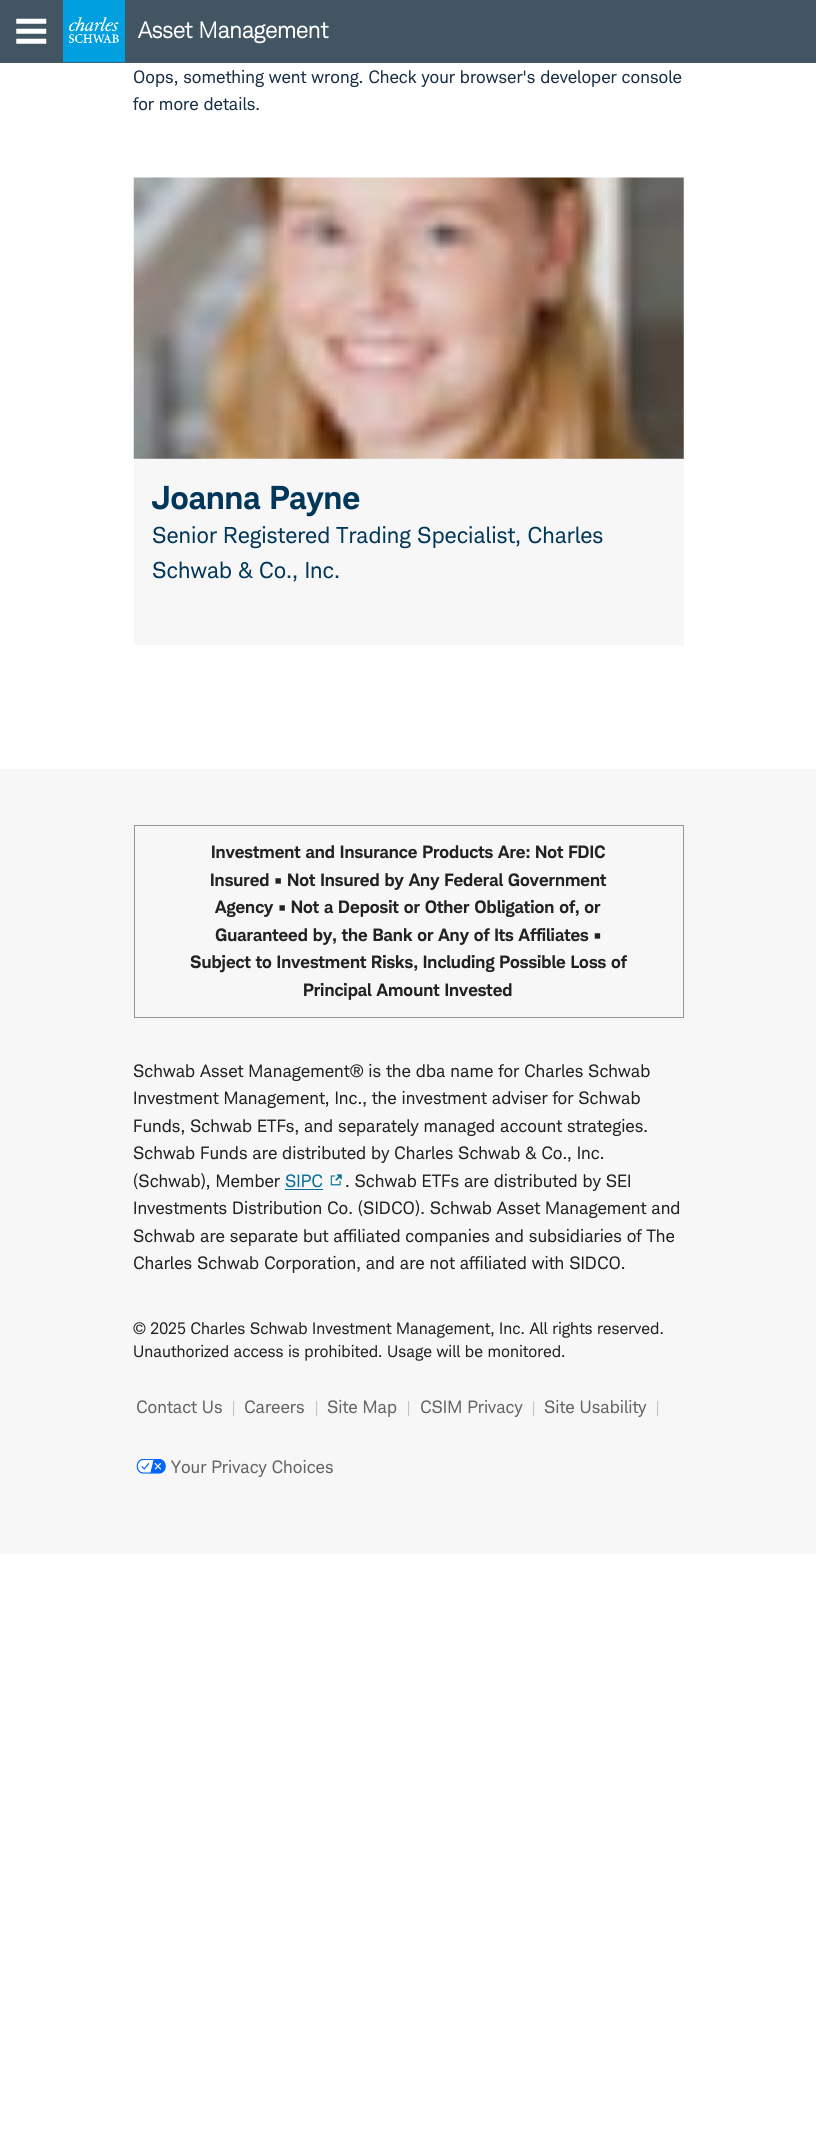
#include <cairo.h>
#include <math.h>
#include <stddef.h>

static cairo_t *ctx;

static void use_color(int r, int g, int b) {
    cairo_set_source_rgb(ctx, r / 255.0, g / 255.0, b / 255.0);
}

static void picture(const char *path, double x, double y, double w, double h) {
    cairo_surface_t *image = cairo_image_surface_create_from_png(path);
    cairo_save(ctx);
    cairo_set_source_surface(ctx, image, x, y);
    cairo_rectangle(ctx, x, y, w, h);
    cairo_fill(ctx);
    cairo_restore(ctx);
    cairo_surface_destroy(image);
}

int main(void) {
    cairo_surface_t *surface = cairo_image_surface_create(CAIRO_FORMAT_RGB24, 816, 2133);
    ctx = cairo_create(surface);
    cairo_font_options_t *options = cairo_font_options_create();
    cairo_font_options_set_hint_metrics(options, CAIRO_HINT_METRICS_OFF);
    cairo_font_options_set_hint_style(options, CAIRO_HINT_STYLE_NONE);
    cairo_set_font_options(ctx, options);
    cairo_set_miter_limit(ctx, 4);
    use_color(255, 255, 255);
    cairo_paint(ctx);
    use_color(66, 85, 99);
    cairo_rectangle(ctx, 0, 0, 816, 63);
    cairo_fill(ctx);
    picture("img1.png", 16, 18, 31, 26);
    picture("img2.png", 63, 0, 62, 63);
    cairo_select_font_face(ctx, "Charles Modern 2", CAIRO_FONT_SLANT_NORMAL, CAIRO_FONT_WEIGHT_BOLD);
    cairo_set_font_size(ctx, 22.5);
    use_color(255, 255, 255);
    cairo_move_to(ctx, 138, 38);
    cairo_show_text(ctx, "Asset Management");
    cairo_select_font_face(ctx, "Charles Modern", CAIRO_FONT_SLANT_NORMAL, CAIRO_FONT_WEIGHT_NORMAL);
    cairo_set_font_size(ctx, 17.5);
    use_color(24, 47, 70);
    cairo_move_to(ctx, 133, 83);
    cairo_show_text(ctx, "Oops, something went wrong. Check your browser's developer console");
    cairo_move_to(ctx, 133, 110);
    cairo_show_text(ctx, "for more details.");
    use_color(247, 247, 247);
    cairo_rectangle(ctx, 134, 178, 550, 467);
    cairo_fill(ctx);
    picture("img3.png", 133, 177, 551, 282);
    picture("img4.png", 133, 196, 2, 2);
    cairo_select_font_face(ctx, "Charles Modern", CAIRO_FONT_SLANT_NORMAL, CAIRO_FONT_WEIGHT_BOLD);
    cairo_set_font_size(ctx, 32.5);
    use_color(2, 55, 90);
    cairo_move_to(ctx, 152, 509);
    cairo_show_text(ctx, "Joanna Payne");
    cairo_select_font_face(ctx, "Charles Modern", CAIRO_FONT_SLANT_NORMAL, CAIRO_FONT_WEIGHT_NORMAL);
    cairo_set_font_size(ctx, 22.5);
    cairo_move_to(ctx, 152, 543);
    cairo_show_text(ctx, "Senior Registered Trading Specialist, Charles");
    cairo_move_to(ctx, 152, 578);
    cairo_show_text(ctx, "Schwab & Co., Inc.");
    use_color(247, 247, 247);
    cairo_rectangle(ctx, 0, 769, 816, 785);
    cairo_fill(ctx);
    cairo_rectangle(ctx, 134.5, 825.5, 549, 192);
    use_color(151, 151, 151);
    cairo_set_line_width(ctx, 1);
    cairo_stroke(ctx);
    cairo_select_font_face(ctx, "Charles Modern", CAIRO_FONT_SLANT_NORMAL, CAIRO_FONT_WEIGHT_BOLD);
    cairo_set_font_size(ctx, 17.5);
    use_color(34, 34, 34);
    cairo_move_to(ctx, 211, 858);
    cairo_show_text(ctx, "Investment and Insurance Products Are: Not FDIC");
    cairo_move_to(ctx, 210, 886);
    cairo_show_text(ctx, "Insured • Not Insured by Any Federal Government");
    cairo_move_to(ctx, 215, 913);
    cairo_show_text(ctx, "Agency • Not a Deposit or Other Obligation of, or");
    cairo_move_to(ctx, 215, 941);
    cairo_show_text(ctx, "Guaranteed by, the Bank or Any of Its Affiliates •");
    cairo_move_to(ctx, 190, 968);
    cairo_show_text(ctx, "Subject to Investment Risks, Including Possible Loss of");
    cairo_move_to(ctx, 303, 996);
    cairo_show_text(ctx, "Principal Amount Invested");
    cairo_select_font_face(ctx, "Charles Modern", CAIRO_FONT_SLANT_NORMAL, CAIRO_FONT_WEIGHT_NORMAL);
    cairo_move_to(ctx, 133, 1077);
    cairo_show_text(ctx, "Schwab Asset Management® is the dba name for Charles Schwab");
    cairo_move_to(ctx, 133, 1104);
    cairo_show_text(ctx, "Investment Management, Inc., the investment adviser for Schwab");
    cairo_move_to(ctx, 133, 1132);
    cairo_show_text(ctx, "Funds, Schwab ETFs, and separately managed account strategies.");
    cairo_move_to(ctx, 133, 1159);
    cairo_show_text(ctx, "Schwab Funds are distributed by Charles Schwab & Co., Inc.");
    cairo_move_to(ctx, 133, 1187);
    cairo_show_text(ctx, "(Schwab), Member");
    use_color(2, 109, 151);
    cairo_move_to(ctx, 285, 1187);
    cairo_show_text(ctx, "SIPC");
    cairo_rectangle(ctx, 285, 1189, 38, 1);
    cairo_fill(ctx);
    picture("img5.png", 330, 1174, 12, 12);
    use_color(34, 34, 34);
    cairo_move_to(ctx, 345, 1187);
    cairo_show_text(ctx, ". Schwab ETFs are distributed by SEI");
    cairo_move_to(ctx, 133, 1214);
    cairo_show_text(ctx, "Investments Distribution Co. (SIDCO). Schwab Asset Management and");
    cairo_move_to(ctx, 133, 1242);
    cairo_show_text(ctx, "Schwab are separate but affiliated companies and subsidiaries of The");
    cairo_move_to(ctx, 133, 1269);
    cairo_show_text(ctx, "Charles Schwab Corporation, and are not affiliated with SIDCO.");
    cairo_set_font_size(ctx, 16.25);
    cairo_move_to(ctx, 133, 1334);
    cairo_show_text(ctx, "© 2025 Charles Schwab Investment Management, Inc. All rights reserved.");
    cairo_move_to(ctx, 133, 1357);
    cairo_show_text(ctx, "Unauthorized access is prohibited. Usage will be monitored.");
    cairo_set_font_size(ctx, 17.5);
    use_color(100, 100, 100);
    cairo_move_to(ctx, 136, 1413);
    cairo_show_text(ctx, "Contact Us");
    cairo_set_font_size(ctx, 15);
    use_color(191, 191, 191);
    cairo_move_to(ctx, 232, 1413);
    cairo_show_text(ctx, "|");
    cairo_set_font_size(ctx, 17.5);
    use_color(100, 100, 100);
    cairo_move_to(ctx, 244, 1413);
    cairo_show_text(ctx, "Careers");
    cairo_set_font_size(ctx, 15);
    use_color(191, 191, 191);
    cairo_move_to(ctx, 315, 1413);
    cairo_show_text(ctx, "|");
    cairo_set_font_size(ctx, 17.5);
    use_color(100, 100, 100);
    cairo_move_to(ctx, 327, 1413);
    cairo_show_text(ctx, "Site Map");
    cairo_set_font_size(ctx, 15);
    use_color(191, 191, 191);
    cairo_move_to(ctx, 407, 1413);
    cairo_show_text(ctx, "|");
    cairo_set_font_size(ctx, 17.5);
    use_color(100, 100, 100);
    cairo_move_to(ctx, 420, 1413);
    cairo_show_text(ctx, "CSIM Privacy");
    cairo_set_font_size(ctx, 15);
    use_color(191, 191, 191);
    cairo_move_to(ctx, 532, 1413);
    cairo_show_text(ctx, "|");
    cairo_set_font_size(ctx, 17.5);
    use_color(100, 100, 100);
    cairo_move_to(ctx, 544, 1413);
    cairo_show_text(ctx, "Site Usability");
    cairo_set_font_size(ctx, 15);
    use_color(191, 191, 191);
    cairo_move_to(ctx, 656, 1413);
    cairo_show_text(ctx, "|");
    picture("img6.png", 136, 1459, 30, 15);
    cairo_set_font_size(ctx, 17.5);
    use_color(100, 100, 100);
    cairo_move_to(ctx, 171, 1473);
    cairo_show_text(ctx, "Your Privacy Choices");
    cairo_surface_write_to_png(surface, "result.png");
    cairo_font_options_destroy(options);
    cairo_destroy(ctx);
    cairo_surface_destroy(surface);
    return 0;
}
